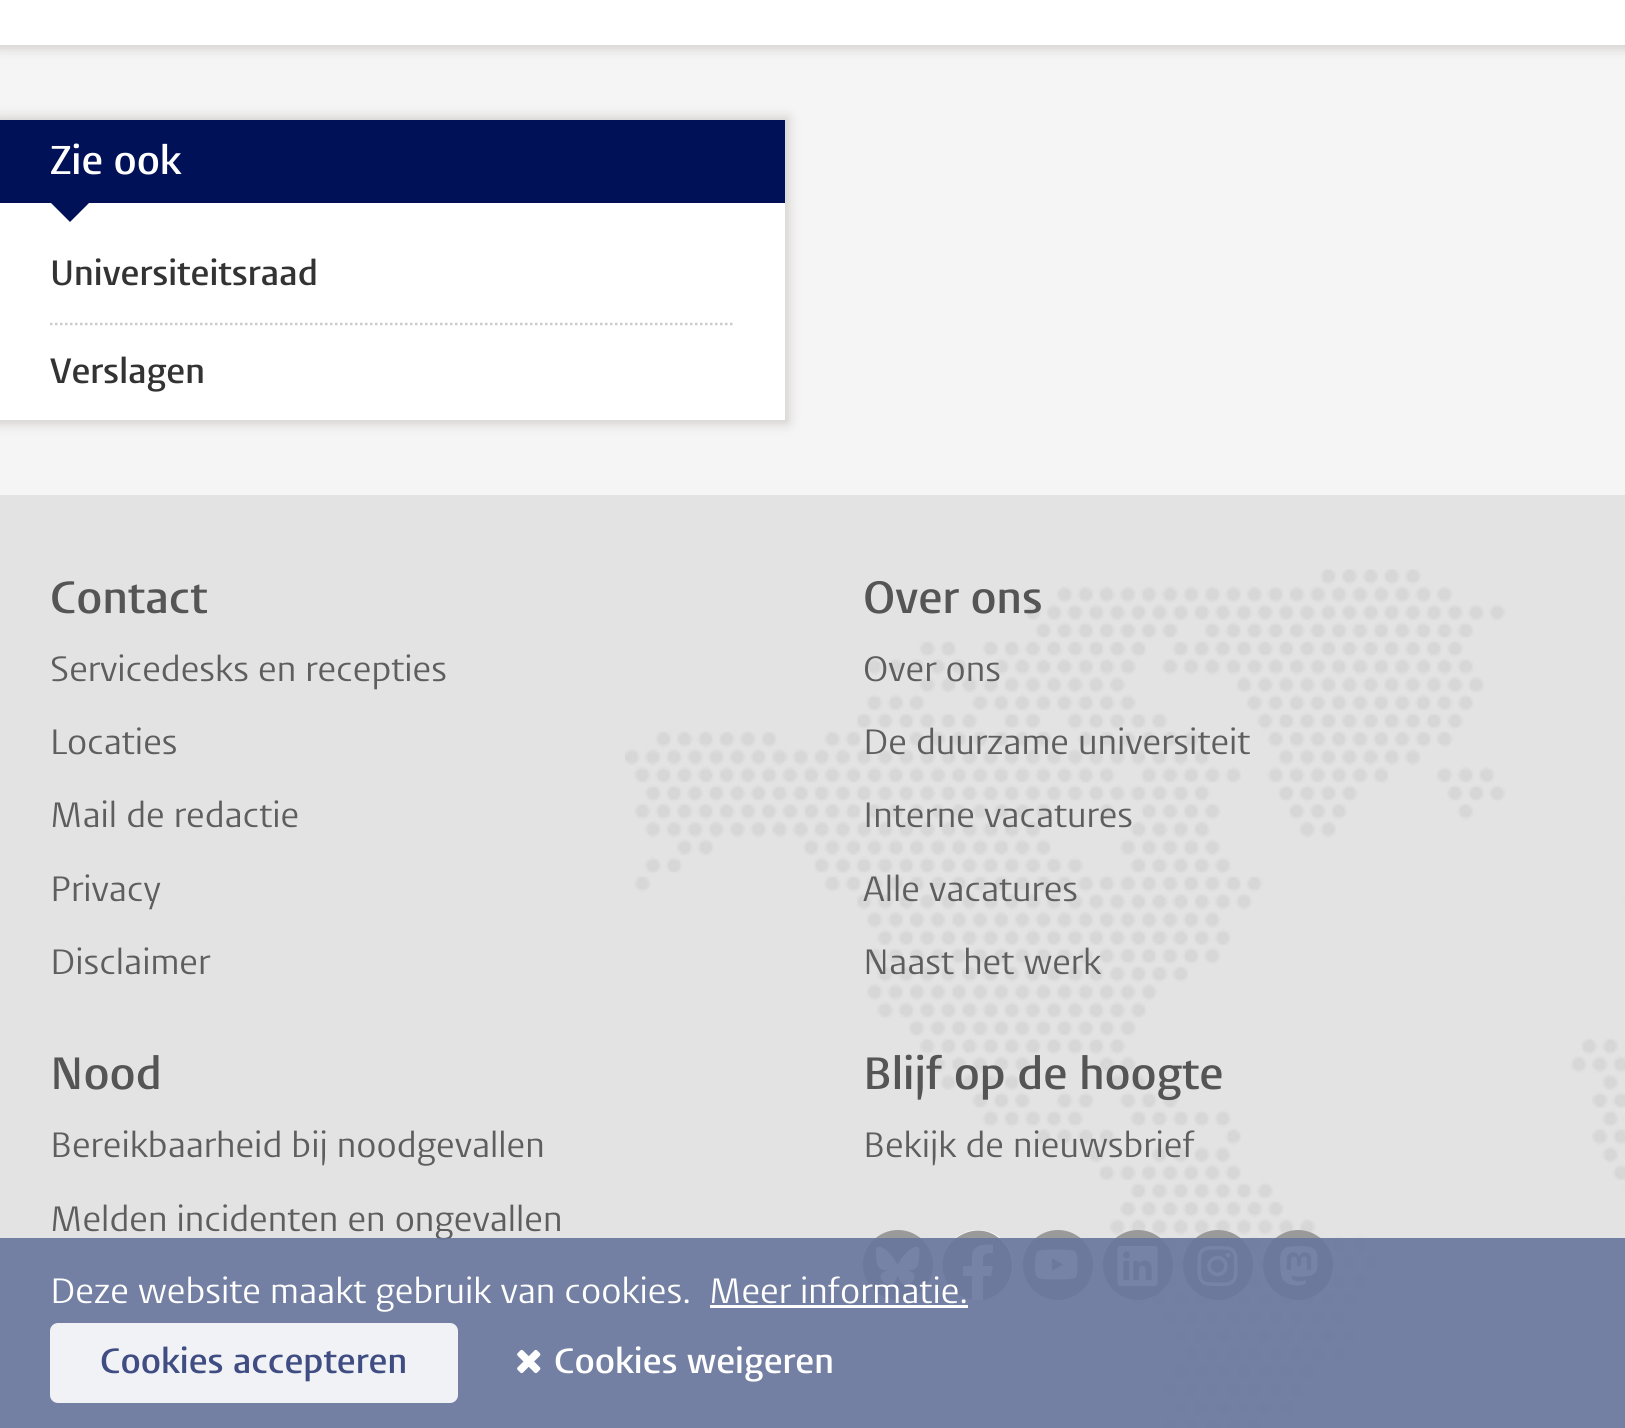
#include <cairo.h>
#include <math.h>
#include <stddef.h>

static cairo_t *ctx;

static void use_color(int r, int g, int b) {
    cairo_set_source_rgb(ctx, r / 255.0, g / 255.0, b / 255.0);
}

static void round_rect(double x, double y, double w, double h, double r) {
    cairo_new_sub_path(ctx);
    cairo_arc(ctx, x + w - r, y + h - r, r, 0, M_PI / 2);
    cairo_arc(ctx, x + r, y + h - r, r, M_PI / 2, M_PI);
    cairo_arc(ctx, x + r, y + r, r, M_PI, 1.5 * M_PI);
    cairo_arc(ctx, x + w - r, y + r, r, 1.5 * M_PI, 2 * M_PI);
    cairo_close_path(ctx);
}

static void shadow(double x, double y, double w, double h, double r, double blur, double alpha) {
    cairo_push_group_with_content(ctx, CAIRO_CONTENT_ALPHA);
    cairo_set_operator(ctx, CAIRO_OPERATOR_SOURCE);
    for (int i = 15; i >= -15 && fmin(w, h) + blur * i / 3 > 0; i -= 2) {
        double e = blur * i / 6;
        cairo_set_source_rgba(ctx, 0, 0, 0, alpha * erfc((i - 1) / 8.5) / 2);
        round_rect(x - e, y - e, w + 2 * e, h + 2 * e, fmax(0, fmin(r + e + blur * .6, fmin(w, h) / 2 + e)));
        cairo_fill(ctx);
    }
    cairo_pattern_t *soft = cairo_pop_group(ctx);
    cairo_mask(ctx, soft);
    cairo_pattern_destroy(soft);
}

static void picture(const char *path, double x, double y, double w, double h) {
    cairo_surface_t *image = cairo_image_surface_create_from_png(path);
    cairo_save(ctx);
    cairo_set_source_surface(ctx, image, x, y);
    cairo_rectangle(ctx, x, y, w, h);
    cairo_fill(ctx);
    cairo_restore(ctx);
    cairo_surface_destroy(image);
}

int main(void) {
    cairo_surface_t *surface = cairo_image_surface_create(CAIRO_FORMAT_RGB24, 1625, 1428);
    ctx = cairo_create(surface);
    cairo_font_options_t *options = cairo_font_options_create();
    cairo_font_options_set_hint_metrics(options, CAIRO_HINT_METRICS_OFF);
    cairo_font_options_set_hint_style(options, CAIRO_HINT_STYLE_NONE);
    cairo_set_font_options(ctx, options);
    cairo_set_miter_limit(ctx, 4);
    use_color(245, 245, 245);
    cairo_paint(ctx);
    use_color(120, 110, 100);
    shadow(-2, -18, 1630, 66, 0, 6, 0.3);
    use_color(255, 255, 255);
    cairo_rectangle(ctx, 0, 0, 1625, 45);
    cairo_fill(ctx);
    use_color(120, 110, 100);
    shadow(-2, 118, 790, 305, 0, 6, 0.3);
    use_color(255, 255, 255);
    cairo_rectangle(ctx, 0, 203, 785, 217);
    cairo_fill(ctx);
    use_color(0, 17, 88);
    cairo_rectangle(ctx, 0, 120, 785, 83);
    cairo_fill(ctx);
    cairo_select_font_face(ctx, "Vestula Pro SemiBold", CAIRO_FONT_SLANT_NORMAL, CAIRO_FONT_WEIGHT_NORMAL);
    cairo_set_font_size(ctx, 40);
    use_color(255, 255, 255);
    cairo_move_to(ctx, 50, 174);
    cairo_show_text(ctx, "Zie ook");
    use_color(0, 17, 88);
    cairo_new_path(ctx);
    cairo_move_to(ctx, 50, 202);
    cairo_line_to(ctx, 90, 202);
    cairo_line_to(ctx, 70, 222);
    cairo_close_path(ctx);
    cairo_fill(ctx);
    cairo_set_font_size(ctx, 35);
    use_color(51, 51, 51);
    cairo_move_to(ctx, 50, 285);
    cairo_show_text(ctx, "Universiteitsraad");
    cairo_new_path(ctx);
    cairo_move_to(ctx, 50, 324);
    cairo_line_to(ctx, 735, 324);
    use_color(204, 204, 204);
    cairo_set_line_width(ctx, 2.5);
    cairo_set_dash(ctx, (double[]){2.5, 2.5}, 2, 0);
    cairo_stroke(ctx);
    use_color(51, 51, 51);
    cairo_move_to(ctx, 50, 383);
    cairo_show_text(ctx, "Verslagen");
    use_color(227, 227, 227);
    cairo_rectangle(ctx, 0, 495, 1625, 933);
    cairo_fill(ctx);
    picture("img1.png", 625, 569, 1000, 859);
    cairo_set_font_size(ctx, 45);
    use_color(85, 85, 85);
    cairo_move_to(ctx, 50, 613);
    cairo_show_text(ctx, "Contact");
    cairo_select_font_face(ctx, "Vestula Pro", CAIRO_FONT_SLANT_NORMAL, CAIRO_FONT_WEIGHT_NORMAL);
    cairo_set_font_size(ctx, 35);
    use_color(94, 94, 94);
    cairo_move_to(ctx, 50, 681);
    cairo_show_text(ctx, "Servicedesks en recepties");
    cairo_move_to(ctx, 50, 754);
    cairo_show_text(ctx, "Locaties");
    cairo_move_to(ctx, 50, 827);
    cairo_show_text(ctx, "Mail de redactie");
    cairo_move_to(ctx, 50, 901);
    cairo_show_text(ctx, "Privacy");
    cairo_move_to(ctx, 50, 974);
    cairo_show_text(ctx, "Disclaimer");
    cairo_select_font_face(ctx, "Vestula Pro SemiBold", CAIRO_FONT_SLANT_NORMAL, CAIRO_FONT_WEIGHT_NORMAL);
    cairo_set_font_size(ctx, 45);
    use_color(85, 85, 85);
    cairo_move_to(ctx, 863, 613);
    cairo_show_text(ctx, "Over ons");
    cairo_select_font_face(ctx, "Vestula Pro", CAIRO_FONT_SLANT_NORMAL, CAIRO_FONT_WEIGHT_NORMAL);
    cairo_set_font_size(ctx, 35);
    use_color(94, 94, 94);
    cairo_move_to(ctx, 863, 681);
    cairo_show_text(ctx, "Over ons");
    cairo_move_to(ctx, 863, 754);
    cairo_show_text(ctx, "De duurzame universiteit");
    cairo_move_to(ctx, 863, 827);
    cairo_show_text(ctx, "Interne vacatures");
    cairo_move_to(ctx, 863, 901);
    cairo_show_text(ctx, "Alle vacatures");
    cairo_move_to(ctx, 863, 974);
    cairo_show_text(ctx, "Naast het werk");
    cairo_select_font_face(ctx, "Vestula Pro SemiBold", CAIRO_FONT_SLANT_NORMAL, CAIRO_FONT_WEIGHT_NORMAL);
    cairo_set_font_size(ctx, 45);
    use_color(85, 85, 85);
    cairo_move_to(ctx, 50, 1089);
    cairo_show_text(ctx, "Nood");
    cairo_select_font_face(ctx, "Vestula Pro", CAIRO_FONT_SLANT_NORMAL, CAIRO_FONT_WEIGHT_NORMAL);
    cairo_set_font_size(ctx, 35);
    use_color(94, 94, 94);
    cairo_move_to(ctx, 50, 1157);
    cairo_show_text(ctx, "Bereikbaarheid bij noodgevallen");
    cairo_move_to(ctx, 50, 1231);
    cairo_show_text(ctx, "Melden incidenten en ongevallen");
    cairo_select_font_face(ctx, "Vestula Pro SemiBold", CAIRO_FONT_SLANT_NORMAL, CAIRO_FONT_WEIGHT_NORMAL);
    cairo_set_font_size(ctx, 45);
    use_color(85, 85, 85);
    cairo_move_to(ctx, 863, 1089);
    cairo_show_text(ctx, "Blijf op de hoogte");
    cairo_select_font_face(ctx, "Vestula Pro", CAIRO_FONT_SLANT_NORMAL, CAIRO_FONT_WEIGHT_NORMAL);
    cairo_set_font_size(ctx, 35);
    use_color(94, 94, 94);
    cairo_move_to(ctx, 863, 1157);
    cairo_show_text(ctx, "Bekijk de nieuwsbrief");
    use_color(154, 154, 154);
    cairo_new_path(ctx);
    cairo_arc(ctx, 898, 1265, 35, 0, 2 * M_PI);
    cairo_fill(ctx);
    picture("img2.png", 875, 1246, 45, 40);
    use_color(255, 255, 255);
    cairo_arc(ctx, 978, 1265, 35, 0, 2 * M_PI);
    cairo_fill(ctx);
    use_color(154, 154, 154);
    cairo_new_path(ctx);
    cairo_move_to(ctx, 1012, 1266);
    cairo_curve_to(ctx, 1012, 1257, 1009, 1248, 1003, 1242);
    cairo_curve_to(ctx, 977, 1213, 929, 1244, 946, 1280);
    cairo_curve_to(ctx, 950, 1290, 960, 1298, 972, 1300);
    cairo_line_to(ctx, 972, 1276);
    cairo_line_to(ctx, 963, 1276);
    cairo_line_to(ctx, 963, 1266);
    cairo_line_to(ctx, 972, 1266);
    cairo_line_to(ctx, 972, 1255);
    cairo_curve_to(ctx, 974, 1244, 984, 1244, 993, 1245);
    cairo_line_to(ctx, 993, 1253);
    cairo_curve_to(ctx, 982, 1253, 983, 1255, 983, 1266);
    cairo_line_to(ctx, 993, 1266);
    cairo_line_to(ctx, 991, 1276);
    cairo_line_to(ctx, 983, 1276);
    cairo_line_to(ctx, 983, 1300);
    cairo_curve_to(ctx, 1000, 1297, 1012, 1283, 1012, 1266);
    cairo_close_path(ctx);
    cairo_fill(ctx);
    cairo_arc(ctx, 1058, 1265, 35, 0, 2 * M_PI);
    cairo_fill(ctx);
    picture("img3.png", 1035, 1249, 43, 31);
    cairo_arc(ctx, 1138, 1265, 35, 0, 2 * M_PI);
    cairo_fill(ctx);
    picture("img4.png", 1117, 1246, 41, 40);
    cairo_arc(ctx, 1218, 1265, 35, 0, 2 * M_PI);
    cairo_fill(ctx);
    picture("img5.png", 1197, 1246, 41, 40);
    cairo_arc(ctx, 1298, 1265, 35, 0, 2 * M_PI);
    cairo_fill(ctx);
    picture("img6.png", 1280, 1246, 38, 40);
    cairo_set_source_rgba(ctx, 0.408, 0.463, 0.612, 0.9);
    cairo_rectangle(ctx, 0, 1238, 1625, 190);
    cairo_fill(ctx);
    use_color(255, 255, 255);
    cairo_move_to(ctx, 50, 1303);
    cairo_show_text(ctx, "Deze website maakt gebruik van cookies.");
    cairo_move_to(ctx, 709, 1303);
    cairo_show_text(ctx, "Meer informatie.");
    cairo_rectangle(ctx, 710, 1305, 258, 3);
    cairo_fill(ctx);
    use_color(241, 242, 246);
    round_rect(50, 1323, 408, 80, 8);
    cairo_fill(ctx);
    cairo_select_font_face(ctx, "Vestula Pro SemiBold", CAIRO_FONT_SLANT_NORMAL, CAIRO_FONT_WEIGHT_NORMAL);
    use_color(64, 77, 130);
    cairo_move_to(ctx, 100, 1373);
    cairo_show_text(ctx, "Cookies accepteren");
    picture("img7.png", 517, 1349, 24, 25);
    use_color(255, 255, 255);
    cairo_move_to(ctx, 554, 1373);
    cairo_show_text(ctx, "Cookies weigeren");
    cairo_surface_write_to_png(surface, "result.png");
    cairo_font_options_destroy(options);
    cairo_destroy(ctx);
    cairo_surface_destroy(surface);
    return 0;
}
